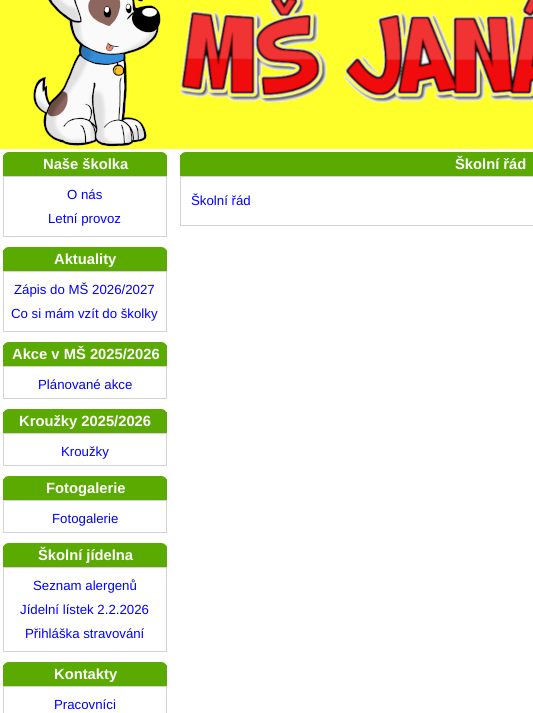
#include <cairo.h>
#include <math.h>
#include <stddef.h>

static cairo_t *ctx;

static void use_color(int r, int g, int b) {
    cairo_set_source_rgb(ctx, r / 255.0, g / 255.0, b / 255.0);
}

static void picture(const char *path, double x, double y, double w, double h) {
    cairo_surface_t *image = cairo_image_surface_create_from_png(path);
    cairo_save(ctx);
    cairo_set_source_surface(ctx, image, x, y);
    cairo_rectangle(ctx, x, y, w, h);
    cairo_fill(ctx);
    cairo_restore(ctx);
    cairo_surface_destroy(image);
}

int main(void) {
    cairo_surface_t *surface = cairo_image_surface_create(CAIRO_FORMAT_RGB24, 533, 713);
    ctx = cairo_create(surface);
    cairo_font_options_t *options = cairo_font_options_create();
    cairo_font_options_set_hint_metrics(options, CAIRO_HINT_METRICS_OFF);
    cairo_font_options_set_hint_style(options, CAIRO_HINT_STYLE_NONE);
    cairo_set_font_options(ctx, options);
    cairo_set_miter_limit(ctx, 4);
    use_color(255, 255, 255);
    cairo_paint(ctx);
    picture("img1.png", 0, 0, 533, 149);
    use_color(90, 170, 1);
    cairo_new_path(ctx);
    cairo_move_to(ctx, 9, 152);
    cairo_line_to(ctx, 161, 152);
    cairo_curve_to(ctx, 164.5, 152, 167, 154.5, 167, 158);
    cairo_line_to(ctx, 167, 176);
    cairo_line_to(ctx, 3, 176);
    cairo_line_to(ctx, 3, 158);
    cairo_curve_to(ctx, 3, 154.5, 5.5, 152, 9, 152);
    cairo_close_path(ctx);
    cairo_fill(ctx);
    cairo_rectangle(ctx, 166, 155, 1, 3);
    cairo_fill(ctx);
    cairo_rectangle(ctx, 3, 155, 1, 3);
    cairo_fill(ctx);
    cairo_select_font_face(ctx, "Liberation Sans", CAIRO_FONT_SLANT_NORMAL, CAIRO_FONT_WEIGHT_BOLD);
    cairo_set_font_size(ctx, 14.75);
    use_color(255, 255, 255);
    cairo_move_to(ctx, 43, 169);
    cairo_show_text(ctx, "Naše školka");
    cairo_rectangle(ctx, 3.5, 176.5, 163, 60);
    use_color(211, 211, 211);
    cairo_set_line_width(ctx, 1);
    cairo_stroke(ctx);
    cairo_select_font_face(ctx, "Liberation Sans", CAIRO_FONT_SLANT_NORMAL, CAIRO_FONT_WEIGHT_NORMAL);
    cairo_set_font_size(ctx, 13.25);
    use_color(0, 0, 255);
    cairo_move_to(ctx, 67, 199);
    cairo_show_text(ctx, "O nás");
    cairo_move_to(ctx, 48, 223);
    cairo_show_text(ctx, "Letní provoz");
    use_color(90, 170, 1);
    cairo_new_path(ctx);
    cairo_move_to(ctx, 9, 247);
    cairo_line_to(ctx, 161, 247);
    cairo_curve_to(ctx, 164.5, 247, 167, 249.5, 167, 253);
    cairo_line_to(ctx, 167, 271);
    cairo_line_to(ctx, 3, 271);
    cairo_line_to(ctx, 3, 253);
    cairo_curve_to(ctx, 3, 249.5, 5.5, 247, 9, 247);
    cairo_close_path(ctx);
    cairo_fill(ctx);
    cairo_rectangle(ctx, 166, 250, 1, 3);
    cairo_fill(ctx);
    cairo_rectangle(ctx, 3, 250, 1, 3);
    cairo_fill(ctx);
    cairo_select_font_face(ctx, "Liberation Sans", CAIRO_FONT_SLANT_NORMAL, CAIRO_FONT_WEIGHT_BOLD);
    cairo_set_font_size(ctx, 14.75);
    use_color(255, 255, 255);
    cairo_move_to(ctx, 54, 264);
    cairo_show_text(ctx, "Aktuality");
    cairo_rectangle(ctx, 3.5, 271.5, 163, 60);
    use_color(211, 211, 211);
    cairo_stroke(ctx);
    cairo_select_font_face(ctx, "Liberation Sans", CAIRO_FONT_SLANT_NORMAL, CAIRO_FONT_WEIGHT_NORMAL);
    cairo_set_font_size(ctx, 13.25);
    use_color(0, 0, 255);
    cairo_move_to(ctx, 14, 294);
    cairo_show_text(ctx, "Zápis do MŠ 2026/2027");
    cairo_move_to(ctx, 11, 318);
    cairo_show_text(ctx, "Co si mám vzít do školky");
    use_color(90, 170, 1);
    cairo_new_path(ctx);
    cairo_move_to(ctx, 9, 342);
    cairo_line_to(ctx, 161, 342);
    cairo_curve_to(ctx, 164.5, 342, 167, 344.5, 167, 348);
    cairo_line_to(ctx, 167, 366);
    cairo_line_to(ctx, 3, 366);
    cairo_line_to(ctx, 3, 348);
    cairo_curve_to(ctx, 3, 344.5, 5.5, 342, 9, 342);
    cairo_close_path(ctx);
    cairo_fill(ctx);
    cairo_rectangle(ctx, 166, 345, 1, 3);
    cairo_fill(ctx);
    cairo_rectangle(ctx, 3, 345, 1, 3);
    cairo_fill(ctx);
    cairo_select_font_face(ctx, "Liberation Sans", CAIRO_FONT_SLANT_NORMAL, CAIRO_FONT_WEIGHT_BOLD);
    cairo_set_font_size(ctx, 14.75);
    use_color(255, 255, 255);
    cairo_move_to(ctx, 12, 359);
    cairo_show_text(ctx, "Akce v MŠ 2025/2026");
    cairo_rectangle(ctx, 3.5, 366.5, 163, 32);
    use_color(211, 211, 211);
    cairo_stroke(ctx);
    cairo_select_font_face(ctx, "Liberation Sans", CAIRO_FONT_SLANT_NORMAL, CAIRO_FONT_WEIGHT_NORMAL);
    cairo_set_font_size(ctx, 13.25);
    use_color(0, 0, 255);
    cairo_move_to(ctx, 38, 389);
    cairo_show_text(ctx, "Plánované akce");
    use_color(90, 170, 1);
    cairo_new_path(ctx);
    cairo_move_to(ctx, 9, 409);
    cairo_line_to(ctx, 161, 409);
    cairo_curve_to(ctx, 164.5, 409, 167, 411.5, 167, 415);
    cairo_line_to(ctx, 167, 433);
    cairo_line_to(ctx, 3, 433);
    cairo_line_to(ctx, 3, 415);
    cairo_curve_to(ctx, 3, 411.5, 5.5, 409, 9, 409);
    cairo_close_path(ctx);
    cairo_fill(ctx);
    cairo_rectangle(ctx, 166, 412, 1, 3);
    cairo_fill(ctx);
    cairo_rectangle(ctx, 3, 412, 1, 3);
    cairo_fill(ctx);
    cairo_select_font_face(ctx, "Liberation Sans", CAIRO_FONT_SLANT_NORMAL, CAIRO_FONT_WEIGHT_BOLD);
    cairo_set_font_size(ctx, 14.75);
    use_color(255, 255, 255);
    cairo_move_to(ctx, 19, 426);
    cairo_show_text(ctx, "Kroužky 2025/2026");
    cairo_rectangle(ctx, 3.5, 433.5, 163, 32);
    use_color(211, 211, 211);
    cairo_stroke(ctx);
    cairo_select_font_face(ctx, "Liberation Sans", CAIRO_FONT_SLANT_NORMAL, CAIRO_FONT_WEIGHT_NORMAL);
    cairo_set_font_size(ctx, 13.25);
    use_color(0, 0, 255);
    cairo_move_to(ctx, 61, 456);
    cairo_show_text(ctx, "Kroužky");
    use_color(90, 170, 1);
    cairo_new_path(ctx);
    cairo_move_to(ctx, 9, 476);
    cairo_line_to(ctx, 161, 476);
    cairo_curve_to(ctx, 164.5, 476, 167, 478.5, 167, 482);
    cairo_line_to(ctx, 167, 500);
    cairo_line_to(ctx, 3, 500);
    cairo_line_to(ctx, 3, 482);
    cairo_curve_to(ctx, 3, 478.5, 5.5, 476, 9, 476);
    cairo_close_path(ctx);
    cairo_fill(ctx);
    cairo_rectangle(ctx, 166, 479, 1, 3);
    cairo_fill(ctx);
    cairo_rectangle(ctx, 3, 479, 1, 3);
    cairo_fill(ctx);
    cairo_select_font_face(ctx, "Liberation Sans", CAIRO_FONT_SLANT_NORMAL, CAIRO_FONT_WEIGHT_BOLD);
    cairo_set_font_size(ctx, 14.75);
    use_color(255, 255, 255);
    cairo_move_to(ctx, 46, 493);
    cairo_show_text(ctx, "Fotogalerie");
    cairo_rectangle(ctx, 3.5, 500.5, 163, 32);
    use_color(211, 211, 211);
    cairo_stroke(ctx);
    cairo_select_font_face(ctx, "Liberation Sans", CAIRO_FONT_SLANT_NORMAL, CAIRO_FONT_WEIGHT_NORMAL);
    cairo_set_font_size(ctx, 13.25);
    use_color(0, 0, 255);
    cairo_move_to(ctx, 52, 523);
    cairo_show_text(ctx, "Fotogalerie");
    use_color(90, 170, 1);
    cairo_new_path(ctx);
    cairo_move_to(ctx, 9, 543);
    cairo_line_to(ctx, 161, 543);
    cairo_curve_to(ctx, 164.5, 543, 167, 545.5, 167, 549);
    cairo_line_to(ctx, 167, 567);
    cairo_line_to(ctx, 3, 567);
    cairo_line_to(ctx, 3, 549);
    cairo_curve_to(ctx, 3, 545.5, 5.5, 543, 9, 543);
    cairo_close_path(ctx);
    cairo_fill(ctx);
    cairo_rectangle(ctx, 166, 546, 1, 3);
    cairo_fill(ctx);
    cairo_rectangle(ctx, 3, 546, 1, 3);
    cairo_fill(ctx);
    cairo_select_font_face(ctx, "Liberation Sans", CAIRO_FONT_SLANT_NORMAL, CAIRO_FONT_WEIGHT_BOLD);
    cairo_set_font_size(ctx, 14.75);
    use_color(255, 255, 255);
    cairo_move_to(ctx, 38, 560);
    cairo_show_text(ctx, "Školní jídelna");
    cairo_rectangle(ctx, 3.5, 567.5, 163, 84);
    use_color(211, 211, 211);
    cairo_stroke(ctx);
    cairo_select_font_face(ctx, "Liberation Sans", CAIRO_FONT_SLANT_NORMAL, CAIRO_FONT_WEIGHT_NORMAL);
    cairo_set_font_size(ctx, 13.25);
    use_color(0, 0, 255);
    cairo_move_to(ctx, 33, 590);
    cairo_show_text(ctx, "Seznam alergenů");
    cairo_move_to(ctx, 20, 614);
    cairo_show_text(ctx, "Jídelní lístek 2.2.2026");
    cairo_move_to(ctx, 25, 638);
    cairo_show_text(ctx, "Přihláška stravování");
    use_color(90, 170, 1);
    cairo_new_path(ctx);
    cairo_move_to(ctx, 9, 662);
    cairo_line_to(ctx, 161, 662);
    cairo_curve_to(ctx, 164.5, 662, 167, 664.5, 167, 668);
    cairo_line_to(ctx, 167, 686);
    cairo_line_to(ctx, 3, 686);
    cairo_line_to(ctx, 3, 668);
    cairo_curve_to(ctx, 3, 664.5, 5.5, 662, 9, 662);
    cairo_close_path(ctx);
    cairo_fill(ctx);
    cairo_rectangle(ctx, 166, 665, 1, 3);
    cairo_fill(ctx);
    cairo_rectangle(ctx, 3, 665, 1, 3);
    cairo_fill(ctx);
    cairo_select_font_face(ctx, "Liberation Sans", CAIRO_FONT_SLANT_NORMAL, CAIRO_FONT_WEIGHT_BOLD);
    cairo_set_font_size(ctx, 14.75);
    use_color(255, 255, 255);
    cairo_move_to(ctx, 54, 679);
    cairo_show_text(ctx, "Kontakty");
    cairo_rectangle(ctx, 3.5, 686.5, 163, 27);
    use_color(211, 211, 211);
    cairo_stroke(ctx);
    cairo_select_font_face(ctx, "Liberation Sans", CAIRO_FONT_SLANT_NORMAL, CAIRO_FONT_WEIGHT_NORMAL);
    cairo_set_font_size(ctx, 13.25);
    use_color(0, 0, 255);
    cairo_move_to(ctx, 54, 709);
    cairo_show_text(ctx, "Pracovníci");
    use_color(90, 170, 1);
    cairo_new_path(ctx);
    cairo_move_to(ctx, 186, 152);
    cairo_line_to(ctx, 533, 152);
    cairo_curve_to(ctx, 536.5, 152, 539, 154.5, 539, 158);
    cairo_line_to(ctx, 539, 176);
    cairo_line_to(ctx, 180, 176);
    cairo_line_to(ctx, 180, 158);
    cairo_curve_to(ctx, 180, 154.5, 182.5, 152, 186, 152);
    cairo_close_path(ctx);
    cairo_fill(ctx);
    cairo_rectangle(ctx, 180, 155, 1, 3);
    cairo_fill(ctx);
    cairo_select_font_face(ctx, "Liberation Sans", CAIRO_FONT_SLANT_NORMAL, CAIRO_FONT_WEIGHT_BOLD);
    cairo_set_font_size(ctx, 14.75);
    use_color(255, 255, 255);
    cairo_move_to(ctx, 455, 169);
    cairo_show_text(ctx, "Školní řád");
    cairo_rectangle(ctx, 180.5, 176.5, 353, 49);
    use_color(211, 211, 211);
    cairo_stroke(ctx);
    cairo_select_font_face(ctx, "Liberation Sans", CAIRO_FONT_SLANT_NORMAL, CAIRO_FONT_WEIGHT_NORMAL);
    cairo_set_font_size(ctx, 13.25);
    use_color(0, 0, 255);
    cairo_move_to(ctx, 191, 205);
    cairo_show_text(ctx, "Školní řád");
    cairo_surface_write_to_png(surface, "result.png");
    cairo_font_options_destroy(options);
    cairo_destroy(ctx);
    cairo_surface_destroy(surface);
    return 0;
}
